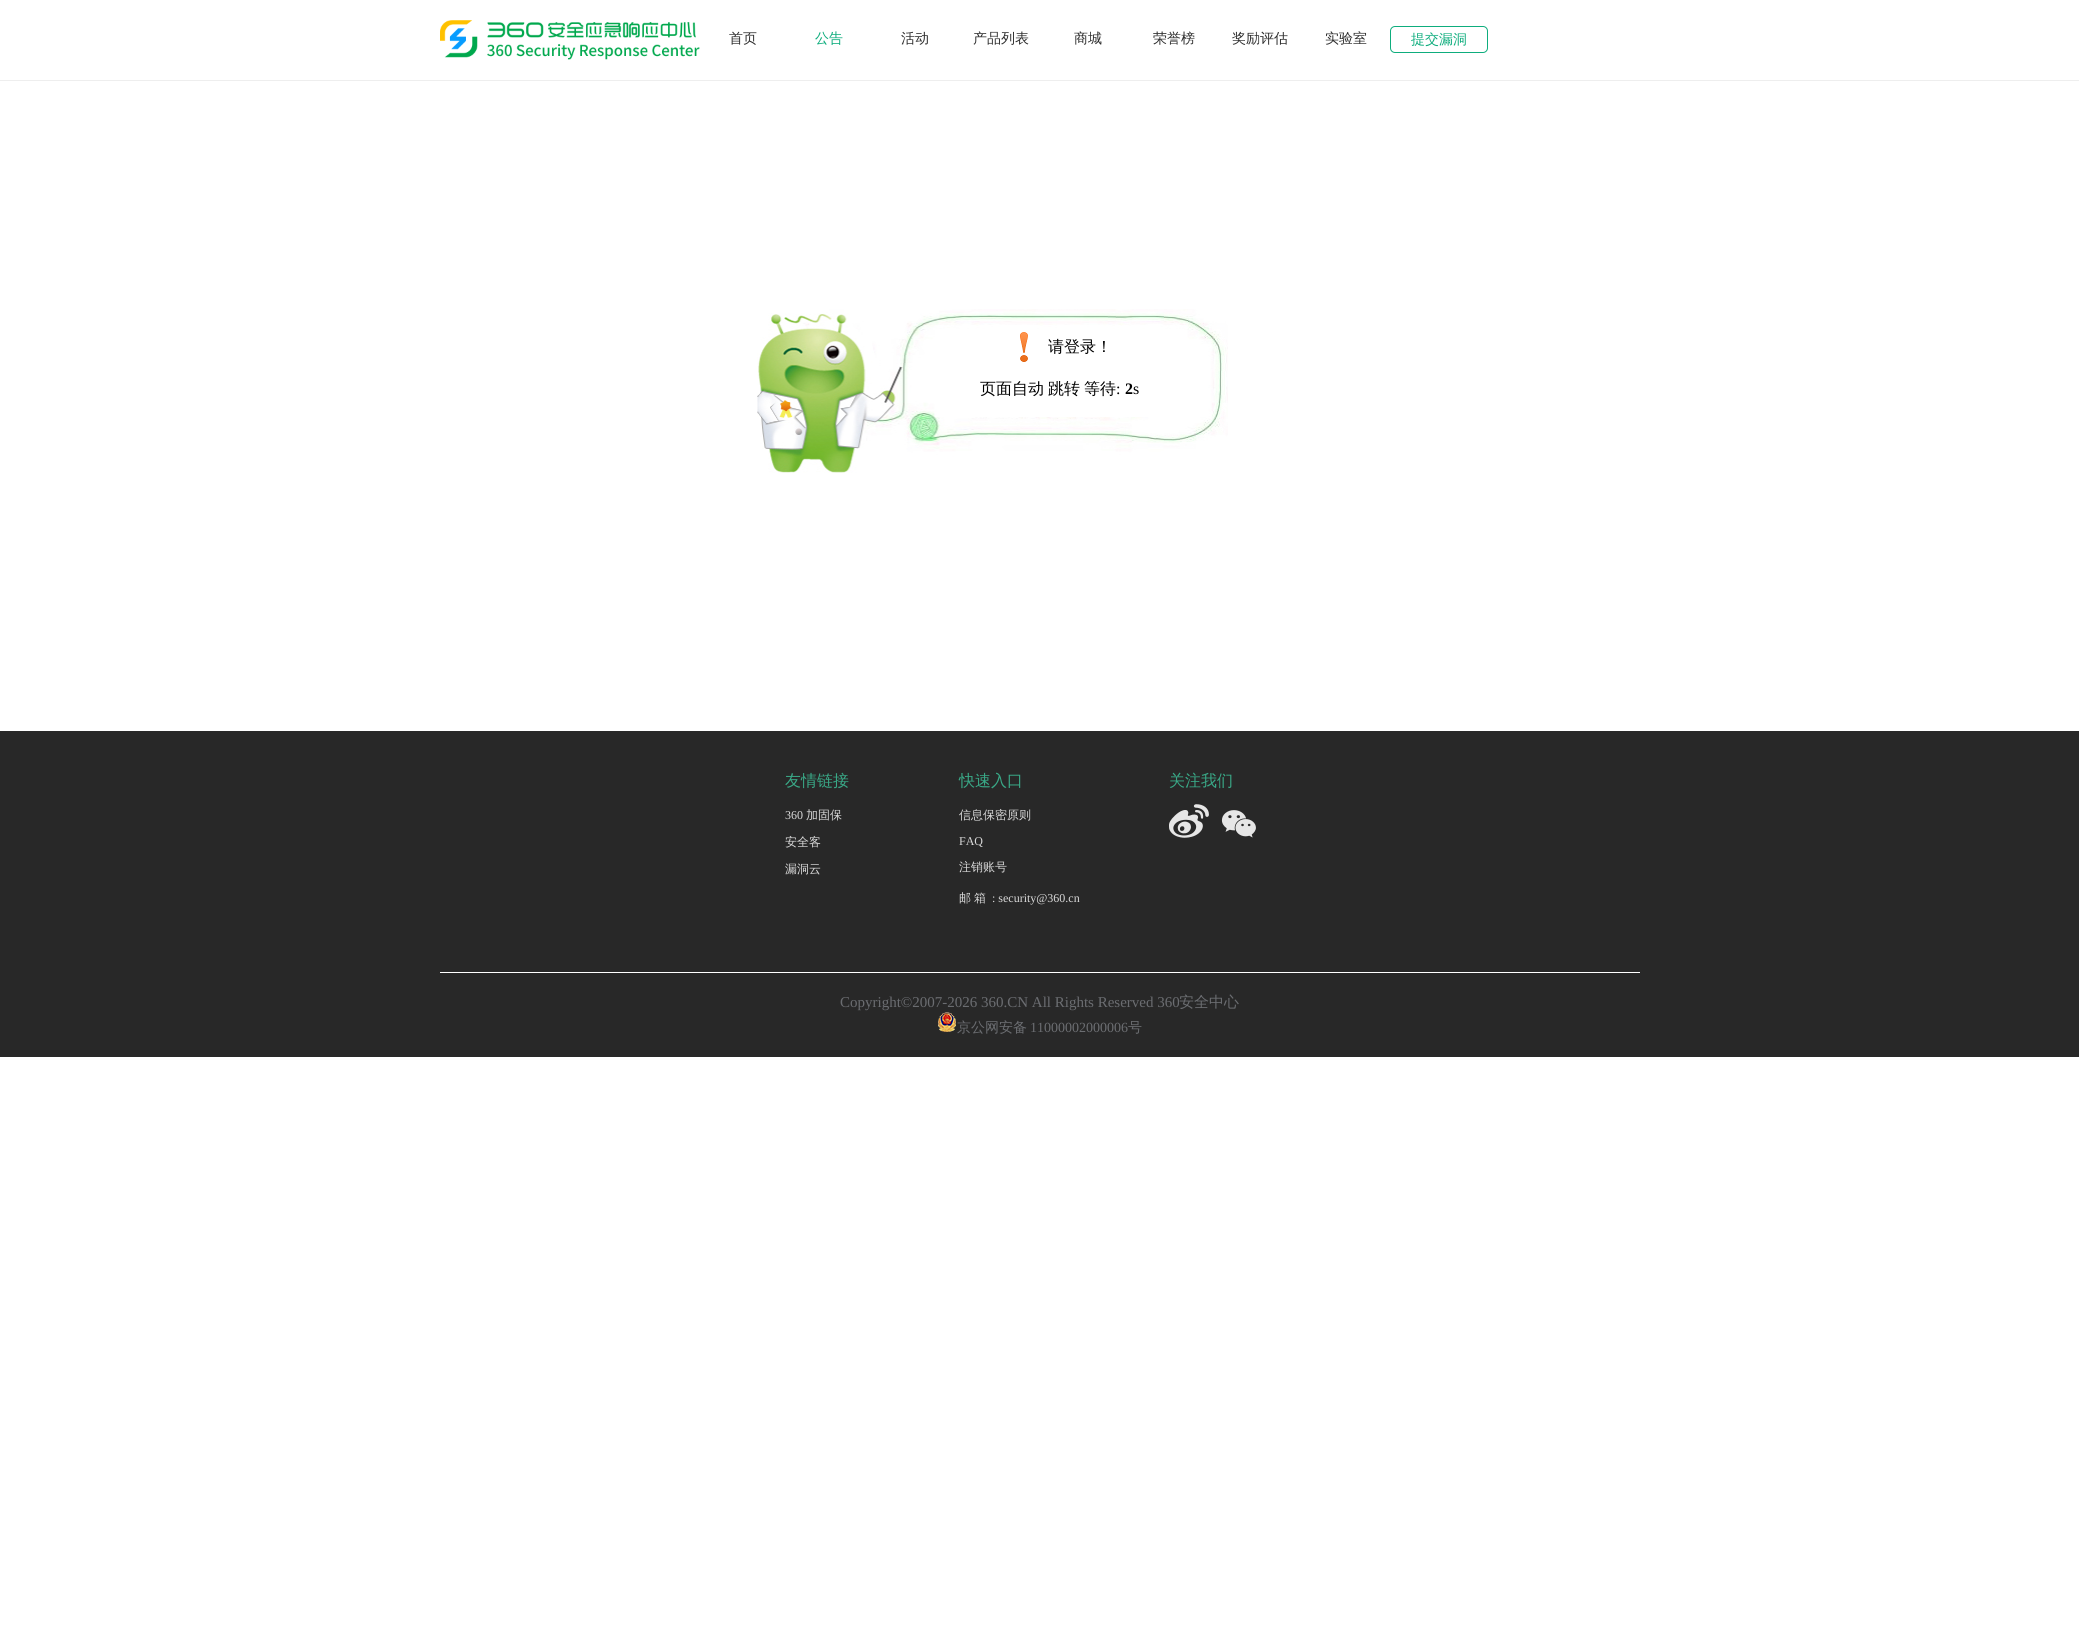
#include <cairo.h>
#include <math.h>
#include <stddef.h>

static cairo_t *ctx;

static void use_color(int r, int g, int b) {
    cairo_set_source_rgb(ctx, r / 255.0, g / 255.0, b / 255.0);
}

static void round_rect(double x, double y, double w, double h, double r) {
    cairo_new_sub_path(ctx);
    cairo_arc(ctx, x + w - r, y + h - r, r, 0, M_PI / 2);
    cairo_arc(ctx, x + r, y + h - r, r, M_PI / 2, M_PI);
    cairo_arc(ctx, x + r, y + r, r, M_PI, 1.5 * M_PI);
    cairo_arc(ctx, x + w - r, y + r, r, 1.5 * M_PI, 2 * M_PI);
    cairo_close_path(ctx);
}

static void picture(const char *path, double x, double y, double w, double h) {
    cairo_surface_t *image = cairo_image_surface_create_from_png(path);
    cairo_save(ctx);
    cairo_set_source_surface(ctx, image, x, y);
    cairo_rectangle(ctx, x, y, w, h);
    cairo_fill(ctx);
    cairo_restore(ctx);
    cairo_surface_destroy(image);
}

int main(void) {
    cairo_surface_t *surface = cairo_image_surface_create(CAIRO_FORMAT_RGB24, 2079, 1634);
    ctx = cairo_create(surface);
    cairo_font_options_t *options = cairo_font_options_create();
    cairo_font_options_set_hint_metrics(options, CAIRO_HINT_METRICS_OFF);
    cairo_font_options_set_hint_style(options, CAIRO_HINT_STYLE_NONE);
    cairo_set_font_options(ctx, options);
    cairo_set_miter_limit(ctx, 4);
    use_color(255, 255, 255);
    cairo_paint(ctx);
    use_color(238, 238, 238);
    cairo_rectangle(ctx, 0, 80, 2079, 1);
    cairo_fill(ctx);
    picture("img1.png", 440, 20, 260, 40);
    cairo_select_font_face(ctx, "WenQuanYi Zen Hei Medium", CAIRO_FONT_SLANT_NORMAL, CAIRO_FONT_WEIGHT_NORMAL);
    cairo_set_font_size(ctx, 14);
    use_color(46, 46, 46);
    cairo_move_to(ctx, 729, 43);
    cairo_show_text(ctx, "首页");
    use_color(14, 173, 125);
    cairo_move_to(ctx, 815, 43);
    cairo_show_text(ctx, "公告");
    use_color(46, 46, 46);
    cairo_move_to(ctx, 901, 43);
    cairo_show_text(ctx, "活动");
    cairo_move_to(ctx, 973, 43);
    cairo_show_text(ctx, "产品列表");
    cairo_move_to(ctx, 1074, 43);
    cairo_show_text(ctx, "商城");
    cairo_move_to(ctx, 1153, 43);
    cairo_show_text(ctx, "荣誉榜");
    cairo_move_to(ctx, 1232, 43);
    cairo_show_text(ctx, "奖励评估");
    cairo_move_to(ctx, 1325, 43);
    cairo_show_text(ctx, "实验室");
    round_rect(1390.5, 26.5, 97, 26, 4.5);
    use_color(14, 173, 125);
    cairo_set_line_width(ctx, 1);
    cairo_stroke(ctx);
    cairo_move_to(ctx, 1411, 44);
    cairo_show_text(ctx, "提交漏洞");
    picture("img2.png", 757, 309, 471, 164);
    picture("img3.png", 1020, 332, 8, 30);
    cairo_set_font_size(ctx, 16);
    use_color(0, 0, 0);
    cairo_move_to(ctx, 1048, 352);
    cairo_show_text(ctx, "请登录！");
    cairo_move_to(ctx, 980, 394);
    cairo_show_text(ctx, "页面自动");
    cairo_move_to(ctx, 1048, 394);
    cairo_show_text(ctx, "跳转");
    cairo_move_to(ctx, 1084, 394);
    cairo_show_text(ctx, "等待");
    cairo_select_font_face(ctx, "Liberation Serif", CAIRO_FONT_SLANT_NORMAL, CAIRO_FONT_WEIGHT_NORMAL);
    cairo_move_to(ctx, 1116, 394);
    cairo_show_text(ctx, ":");
    cairo_select_font_face(ctx, "Liberation Serif", CAIRO_FONT_SLANT_NORMAL, CAIRO_FONT_WEIGHT_BOLD);
    cairo_move_to(ctx, 1125, 394);
    cairo_show_text(ctx, "2");
    cairo_select_font_face(ctx, "Liberation Serif", CAIRO_FONT_SLANT_NORMAL, CAIRO_FONT_WEIGHT_NORMAL);
    cairo_move_to(ctx, 1133, 394);
    cairo_show_text(ctx, "s");
    use_color(40, 40, 40);
    cairo_rectangle(ctx, 0, 731, 2079, 326);
    cairo_fill(ctx);
    use_color(255, 255, 255);
    cairo_rectangle(ctx, 440, 972, 1200, 1);
    cairo_fill(ctx);
    cairo_select_font_face(ctx, "WenQuanYi Zen Hei Medium", CAIRO_FONT_SLANT_NORMAL, CAIRO_FONT_WEIGHT_NORMAL);
    use_color(57, 169, 135);
    cairo_move_to(ctx, 785, 786);
    cairo_show_text(ctx, "友情链接");
    cairo_select_font_face(ctx, "Liberation Serif", CAIRO_FONT_SLANT_NORMAL, CAIRO_FONT_WEIGHT_NORMAL);
    cairo_set_font_size(ctx, 12);
    use_color(218, 218, 218);
    cairo_move_to(ctx, 785, 819);
    cairo_show_text(ctx, "360");
    cairo_select_font_face(ctx, "WenQuanYi Zen Hei Medium", CAIRO_FONT_SLANT_NORMAL, CAIRO_FONT_WEIGHT_NORMAL);
    cairo_move_to(ctx, 806, 819);
    cairo_show_text(ctx, "加固保");
    cairo_move_to(ctx, 785, 846);
    cairo_show_text(ctx, "安全客");
    cairo_move_to(ctx, 785, 873);
    cairo_show_text(ctx, "漏洞云");
    cairo_set_font_size(ctx, 16);
    use_color(57, 169, 135);
    cairo_move_to(ctx, 959, 786);
    cairo_show_text(ctx, "快速入口");
    cairo_set_font_size(ctx, 12);
    use_color(218, 218, 218);
    cairo_move_to(ctx, 959, 819);
    cairo_show_text(ctx, "信息保密原则");
    cairo_select_font_face(ctx, "Liberation Serif", CAIRO_FONT_SLANT_NORMAL, CAIRO_FONT_WEIGHT_NORMAL);
    cairo_move_to(ctx, 959, 845);
    cairo_show_text(ctx, "FAQ");
    cairo_select_font_face(ctx, "WenQuanYi Zen Hei Medium", CAIRO_FONT_SLANT_NORMAL, CAIRO_FONT_WEIGHT_NORMAL);
    cairo_move_to(ctx, 959, 871);
    cairo_show_text(ctx, "注销账号");
    cairo_move_to(ctx, 959, 902);
    cairo_show_text(ctx, "邮");
    cairo_move_to(ctx, 974, 902);
    cairo_show_text(ctx, "箱");
    cairo_select_font_face(ctx, "Liberation Serif", CAIRO_FONT_SLANT_NORMAL, CAIRO_FONT_WEIGHT_NORMAL);
    cairo_move_to(ctx, 992, 902);
    cairo_show_text(ctx, ": security@360.cn");
    cairo_select_font_face(ctx, "WenQuanYi Zen Hei Medium", CAIRO_FONT_SLANT_NORMAL, CAIRO_FONT_WEIGHT_NORMAL);
    cairo_set_font_size(ctx, 16);
    use_color(57, 169, 135);
    cairo_move_to(ctx, 1169, 786);
    cairo_show_text(ctx, "关注我们");
    picture("img4.png", 1169, 804, 40, 34);
    picture("img5.png", 1221, 810, 35, 28);
    cairo_select_font_face(ctx, "Liberation Serif", CAIRO_FONT_SLANT_NORMAL, CAIRO_FONT_WEIGHT_NORMAL);
    cairo_set_font_size(ctx, 15);
    use_color(107, 109, 113);
    cairo_move_to(ctx, 840, 1007);
    cairo_show_text(ctx, "Copyright©2007-2026 360.CN All Rights Reserved 360");
    cairo_select_font_face(ctx, "WenQuanYi Zen Hei Medium", CAIRO_FONT_SLANT_NORMAL, CAIRO_FONT_WEIGHT_NORMAL);
    cairo_move_to(ctx, 1179, 1007);
    cairo_show_text(ctx, "安全中心");
    picture("img6.png", 938, 1012, 18, 20);
    cairo_set_font_size(ctx, 14);
    cairo_move_to(ctx, 957, 1032);
    cairo_show_text(ctx, "京公网安备");
    cairo_select_font_face(ctx, "Liberation Serif", CAIRO_FONT_SLANT_NORMAL, CAIRO_FONT_WEIGHT_NORMAL);
    cairo_move_to(ctx, 1030, 1032);
    cairo_show_text(ctx, "11000002000006");
    cairo_select_font_face(ctx, "WenQuanYi Zen Hei Medium", CAIRO_FONT_SLANT_NORMAL, CAIRO_FONT_WEIGHT_NORMAL);
    cairo_move_to(ctx, 1128, 1032);
    cairo_show_text(ctx, "号");
    cairo_surface_write_to_png(surface, "result.png");
    cairo_font_options_destroy(options);
    cairo_destroy(ctx);
    cairo_surface_destroy(surface);
    return 0;
}
